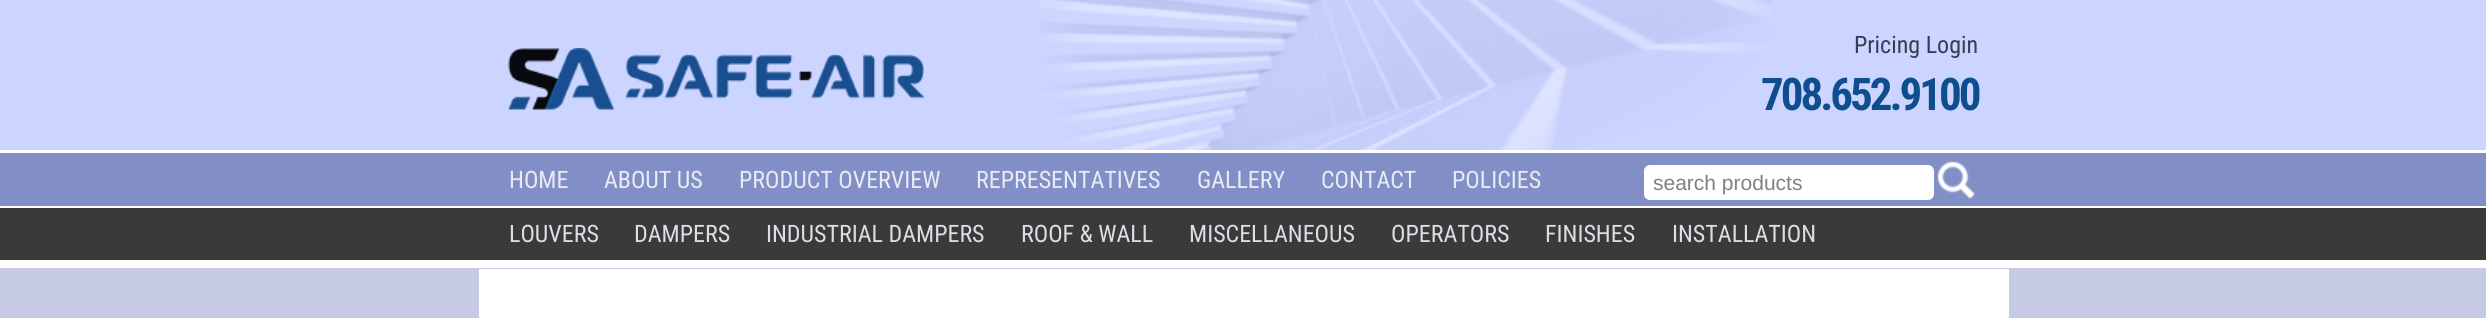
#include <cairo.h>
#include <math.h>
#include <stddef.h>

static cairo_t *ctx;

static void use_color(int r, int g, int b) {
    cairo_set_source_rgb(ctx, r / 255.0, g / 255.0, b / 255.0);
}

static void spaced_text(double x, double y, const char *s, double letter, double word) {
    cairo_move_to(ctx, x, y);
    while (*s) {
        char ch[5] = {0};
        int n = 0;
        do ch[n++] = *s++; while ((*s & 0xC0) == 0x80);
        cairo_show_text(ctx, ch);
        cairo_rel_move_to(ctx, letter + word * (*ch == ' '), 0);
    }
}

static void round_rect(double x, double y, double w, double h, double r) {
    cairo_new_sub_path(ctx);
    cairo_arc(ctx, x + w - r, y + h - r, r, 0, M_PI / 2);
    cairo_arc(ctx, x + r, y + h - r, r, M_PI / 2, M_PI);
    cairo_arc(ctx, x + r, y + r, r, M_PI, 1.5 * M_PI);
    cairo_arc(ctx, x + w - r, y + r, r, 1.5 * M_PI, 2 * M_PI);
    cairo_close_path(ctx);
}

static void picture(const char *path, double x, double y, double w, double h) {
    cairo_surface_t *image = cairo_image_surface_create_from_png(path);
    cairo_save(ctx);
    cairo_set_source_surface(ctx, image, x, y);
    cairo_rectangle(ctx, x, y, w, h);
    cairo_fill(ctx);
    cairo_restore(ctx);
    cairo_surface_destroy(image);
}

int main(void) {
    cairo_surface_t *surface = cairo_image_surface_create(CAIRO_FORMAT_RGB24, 2486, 318);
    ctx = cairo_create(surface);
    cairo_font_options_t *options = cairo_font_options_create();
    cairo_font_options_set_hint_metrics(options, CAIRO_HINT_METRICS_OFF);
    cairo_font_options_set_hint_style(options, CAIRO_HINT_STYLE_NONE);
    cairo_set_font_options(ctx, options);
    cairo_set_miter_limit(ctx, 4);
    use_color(204, 213, 255);
    cairo_paint(ctx);
    use_color(255, 255, 255);
    cairo_rectangle(ctx, 0, 260, 2486, 8);
    cairo_fill(ctx);
    use_color(130, 143, 199);
    cairo_rectangle(ctx, 0, 153, 2486, 53);
    cairo_fill(ctx);
    use_color(255, 255, 255);
    cairo_rectangle(ctx, 0, 150, 2486, 3);
    cairo_fill(ctx);
    cairo_select_font_face(ctx, "Roboto Condensed", CAIRO_FONT_SLANT_NORMAL, CAIRO_FONT_WEIGHT_NORMAL);
    cairo_set_font_size(ctx, 24);
    use_color(233, 235, 244);
    cairo_move_to(ctx, 509, 188);
    cairo_show_text(ctx, "HOME");
    cairo_move_to(ctx, 604, 188);
    cairo_show_text(ctx, "ABOUT US");
    cairo_move_to(ctx, 739, 188);
    cairo_show_text(ctx, "PRODUCT OVERVIEW");
    cairo_move_to(ctx, 976, 188);
    cairo_show_text(ctx, "REPRESENTATIVES");
    cairo_move_to(ctx, 1197, 188);
    cairo_show_text(ctx, "GALLERY");
    cairo_move_to(ctx, 1321, 188);
    cairo_show_text(ctx, "CONTACT");
    cairo_move_to(ctx, 1452, 188);
    cairo_show_text(ctx, "POLICIES");
    picture("img1.png", 1039, 0, 733, 150);
    picture("img2.png", 508, 48, 416, 62);
    use_color(57, 60, 86);
    cairo_move_to(ctx, 1854, 53);
    cairo_show_text(ctx, "Pricing Login");
    cairo_select_font_face(ctx, "Roboto Condensed", CAIRO_FONT_SLANT_NORMAL, CAIRO_FONT_WEIGHT_BOLD);
    cairo_set_font_size(ctx, 45);
    use_color(14, 78, 143);
    spaced_text(1761, 110, "708.652.9100", -3, 0);
    use_color(255, 255, 255);
    round_rect(1644, 165, 290, 35, 6);
    cairo_fill(ctx);
    cairo_select_font_face(ctx, "Liberation Sans", CAIRO_FONT_SLANT_NORMAL, CAIRO_FONT_WEIGHT_NORMAL);
    cairo_set_font_size(ctx, 21);
    use_color(130, 128, 128);
    cairo_move_to(ctx, 1653, 190);
    cairo_show_text(ctx, "search products");
    picture("img3.png", 1937, 161, 38, 38);
    use_color(58, 58, 58);
    cairo_rectangle(ctx, 0, 208, 2486, 52);
    cairo_fill(ctx);
    use_color(255, 255, 255);
    cairo_rectangle(ctx, 0, 206, 2486, 2);
    cairo_fill(ctx);
    cairo_select_font_face(ctx, "Roboto Condensed", CAIRO_FONT_SLANT_NORMAL, CAIRO_FONT_WEIGHT_NORMAL);
    cairo_set_font_size(ctx, 24);
    use_color(221, 222, 229);
    cairo_move_to(ctx, 509, 242);
    cairo_show_text(ctx, "LOUVERS");
    cairo_move_to(ctx, 634, 242);
    cairo_show_text(ctx, "DAMPERS");
    cairo_move_to(ctx, 766, 242);
    cairo_show_text(ctx, "INDUSTRIAL DAMPERS");
    cairo_move_to(ctx, 1021, 242);
    cairo_show_text(ctx, "ROOF & WALL");
    cairo_move_to(ctx, 1189, 242);
    cairo_show_text(ctx, "MISCELLANEOUS");
    cairo_move_to(ctx, 1391, 242);
    cairo_show_text(ctx, "OPERATORS");
    cairo_move_to(ctx, 1545, 242);
    cairo_show_text(ctx, "FINISHES");
    cairo_move_to(ctx, 1672, 242);
    cairo_show_text(ctx, "INSTALLATION");
    use_color(198, 202, 227);
    cairo_rectangle(ctx, 0, 268, 2486, 50);
    cairo_fill(ctx);
    use_color(255, 255, 255);
    cairo_rectangle(ctx, 479, 269, 1530, 49);
    cairo_fill(ctx);
    cairo_surface_write_to_png(surface, "result.png");
    cairo_font_options_destroy(options);
    cairo_destroy(ctx);
    cairo_surface_destroy(surface);
    return 0;
}
